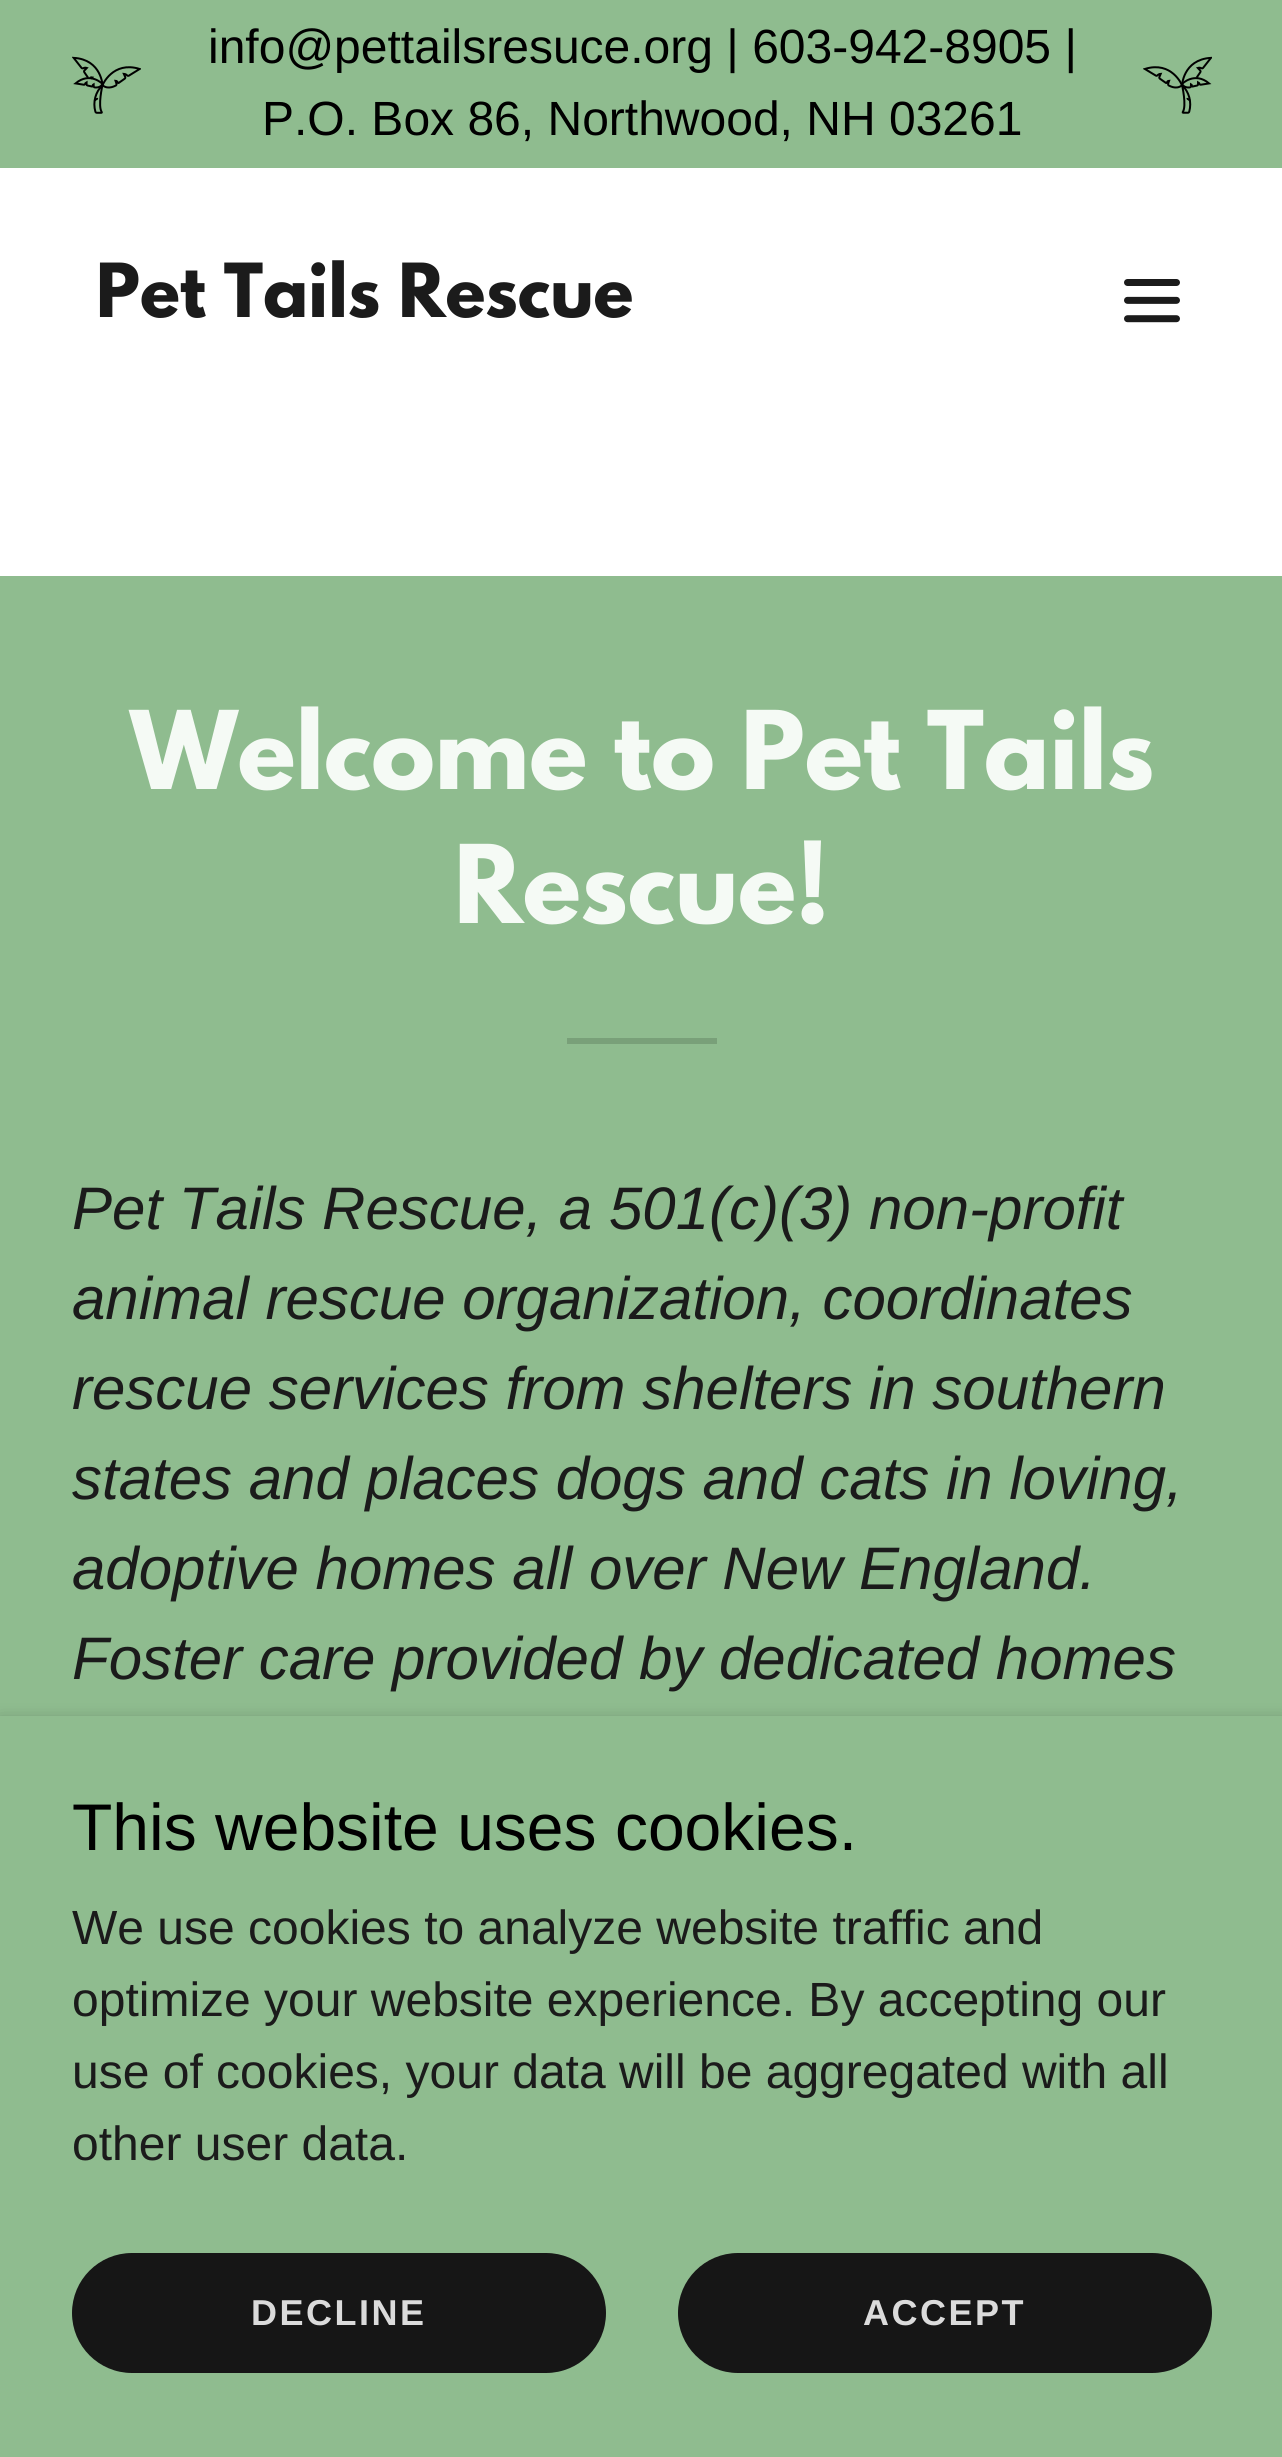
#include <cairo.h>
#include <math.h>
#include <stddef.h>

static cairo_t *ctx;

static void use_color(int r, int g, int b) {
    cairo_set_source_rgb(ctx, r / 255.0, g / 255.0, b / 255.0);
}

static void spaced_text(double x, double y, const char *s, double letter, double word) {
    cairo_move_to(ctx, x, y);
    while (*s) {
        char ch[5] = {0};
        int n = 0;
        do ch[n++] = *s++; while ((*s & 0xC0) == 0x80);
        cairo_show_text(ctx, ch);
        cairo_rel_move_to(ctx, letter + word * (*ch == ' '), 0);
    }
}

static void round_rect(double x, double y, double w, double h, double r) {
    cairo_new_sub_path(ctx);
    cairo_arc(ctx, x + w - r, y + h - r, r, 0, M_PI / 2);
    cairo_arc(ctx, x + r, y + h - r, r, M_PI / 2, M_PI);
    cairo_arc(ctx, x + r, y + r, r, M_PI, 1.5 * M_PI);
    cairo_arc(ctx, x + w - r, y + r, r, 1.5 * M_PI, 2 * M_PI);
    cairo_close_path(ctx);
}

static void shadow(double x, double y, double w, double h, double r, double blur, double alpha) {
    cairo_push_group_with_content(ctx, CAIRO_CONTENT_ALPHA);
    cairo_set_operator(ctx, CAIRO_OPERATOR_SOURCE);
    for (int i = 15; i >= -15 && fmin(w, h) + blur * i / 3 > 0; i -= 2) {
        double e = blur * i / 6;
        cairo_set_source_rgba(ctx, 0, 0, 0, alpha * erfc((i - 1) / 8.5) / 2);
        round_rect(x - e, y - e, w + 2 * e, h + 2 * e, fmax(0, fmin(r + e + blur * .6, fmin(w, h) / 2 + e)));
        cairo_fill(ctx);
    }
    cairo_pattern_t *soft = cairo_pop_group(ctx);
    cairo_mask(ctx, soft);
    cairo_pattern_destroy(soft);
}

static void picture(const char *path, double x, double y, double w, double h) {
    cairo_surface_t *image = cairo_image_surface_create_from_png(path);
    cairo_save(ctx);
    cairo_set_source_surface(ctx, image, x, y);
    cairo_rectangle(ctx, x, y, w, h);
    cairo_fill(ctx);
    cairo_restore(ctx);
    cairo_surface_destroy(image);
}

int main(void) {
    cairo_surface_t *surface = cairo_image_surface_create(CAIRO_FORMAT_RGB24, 1282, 2457);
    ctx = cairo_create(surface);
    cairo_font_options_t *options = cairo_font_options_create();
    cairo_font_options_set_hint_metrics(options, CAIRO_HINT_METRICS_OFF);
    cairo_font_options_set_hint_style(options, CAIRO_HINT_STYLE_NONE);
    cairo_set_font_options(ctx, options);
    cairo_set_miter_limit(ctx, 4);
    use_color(255, 255, 255);
    cairo_paint(ctx);
    use_color(143, 188, 143);
    cairo_rectangle(ctx, 0, 0, 1282, 168);
    cairo_fill(ctx);
    picture("img1.png", 72, 56, 69, 58);
    cairo_select_font_face(ctx, "Liberation Sans", CAIRO_FONT_SLANT_NORMAL, CAIRO_FONT_WEIGHT_NORMAL);
    cairo_set_font_size(ctx, 48);
    use_color(0, 0, 0);
    cairo_move_to(ctx, 208, 63);
    cairo_show_text(ctx, "info@pettailsresuce.org | 603-942-8905 |");
    cairo_move_to(ctx, 262, 135);
    cairo_show_text(ctx, "P.O. Box 86, Northwood, NH 03261");
    picture("img2.png", 1143, 56, 69, 58);
    cairo_select_font_face(ctx, "League Spartan", CAIRO_FONT_SLANT_NORMAL, CAIRO_FONT_WEIGHT_BOLD);
    cairo_set_font_size(ctx, 66);
    use_color(27, 27, 27);
    cairo_move_to(ctx, 96, 317);
    cairo_show_text(ctx, "Pet Tails Rescue");
    picture("img3.png", 1124, 279, 56, 44);
    use_color(143, 188, 143);
    cairo_rectangle(ctx, 0, 576, 1282, 1140);
    cairo_fill(ctx);
    cairo_set_font_size(ctx, 96);
    use_color(245, 250, 245);
    cairo_move_to(ctx, 130, 789);
    cairo_show_text(ctx, "Welcome to Pet Tails");
    cairo_move_to(ctx, 454, 923);
    cairo_show_text(ctx, "Rescue!");
    use_color(121, 160, 121);
    cairo_rectangle(ctx, 567, 1038, 150, 6);
    cairo_fill(ctx);
    cairo_select_font_face(ctx, "Liberation Sans", CAIRO_FONT_SLANT_ITALIC, CAIRO_FONT_WEIGHT_NORMAL);
    cairo_set_font_size(ctx, 60);
    use_color(27, 27, 27);
    cairo_move_to(ctx, 72, 1229);
    cairo_show_text(ctx, "Pet Tails Rescue, a 501(c)(3) non-profit");
    cairo_move_to(ctx, 72, 1319);
    cairo_show_text(ctx, "animal rescue organization, coordinates");
    cairo_move_to(ctx, 72, 1409);
    cairo_show_text(ctx, "rescue services from shelters in southern");
    cairo_move_to(ctx, 72, 1499);
    cairo_show_text(ctx, "states and places dogs and cats in loving,");
    cairo_move_to(ctx, 72, 1589);
    cairo_show_text(ctx, "adoptive homes all over New England.");
    cairo_move_to(ctx, 72, 1679);
    cairo_show_text(ctx, "Foster care provided by dedicated homes");
    use_color(0, 0, 0);
    shadow(0, 1722, 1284, 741, 0, 9, 0.3);
    use_color(143, 188, 143);
    cairo_rectangle(ctx, 0, 1716, 1282, 741);
    cairo_fill(ctx);
    cairo_select_font_face(ctx, "Liberation Sans", CAIRO_FONT_SLANT_NORMAL, CAIRO_FONT_WEIGHT_NORMAL);
    cairo_set_font_size(ctx, 66);
    use_color(0, 0, 0);
    cairo_move_to(ctx, 72, 1850);
    cairo_show_text(ctx, "This website uses cookies.");
    cairo_set_font_size(ctx, 48);
    use_color(27, 27, 27);
    cairo_move_to(ctx, 72, 1944);
    cairo_show_text(ctx, "We use cookies to analyze website traffic and");
    cairo_move_to(ctx, 72, 2016);
    cairo_show_text(ctx, "optimize your website experience. By accepting our");
    cairo_move_to(ctx, 72, 2088);
    cairo_show_text(ctx, "use of cookies, your data will be aggregated with all");
    cairo_move_to(ctx, 72, 2160);
    cairo_show_text(ctx, "other user data.");
    use_color(22, 22, 22);
    round_rect(72, 2253, 534, 120, 60);
    cairo_fill(ctx);
    cairo_select_font_face(ctx, "Liberation Sans", CAIRO_FONT_SLANT_NORMAL, CAIRO_FONT_WEIGHT_BOLD);
    cairo_set_font_size(ctx, 36);
    use_color(219, 219, 219);
    spaced_text(251, 2325, "DECLINE", 2.5, 0);
    use_color(22, 22, 22);
    round_rect(678, 2253, 534, 120, 60);
    cairo_fill(ctx);
    use_color(219, 219, 219);
    spaced_text(863, 2325, "ACCEPT", 2.5, 0);
    cairo_surface_write_to_png(surface, "result.png");
    cairo_font_options_destroy(options);
    cairo_destroy(ctx);
    cairo_surface_destroy(surface);
    return 0;
}
